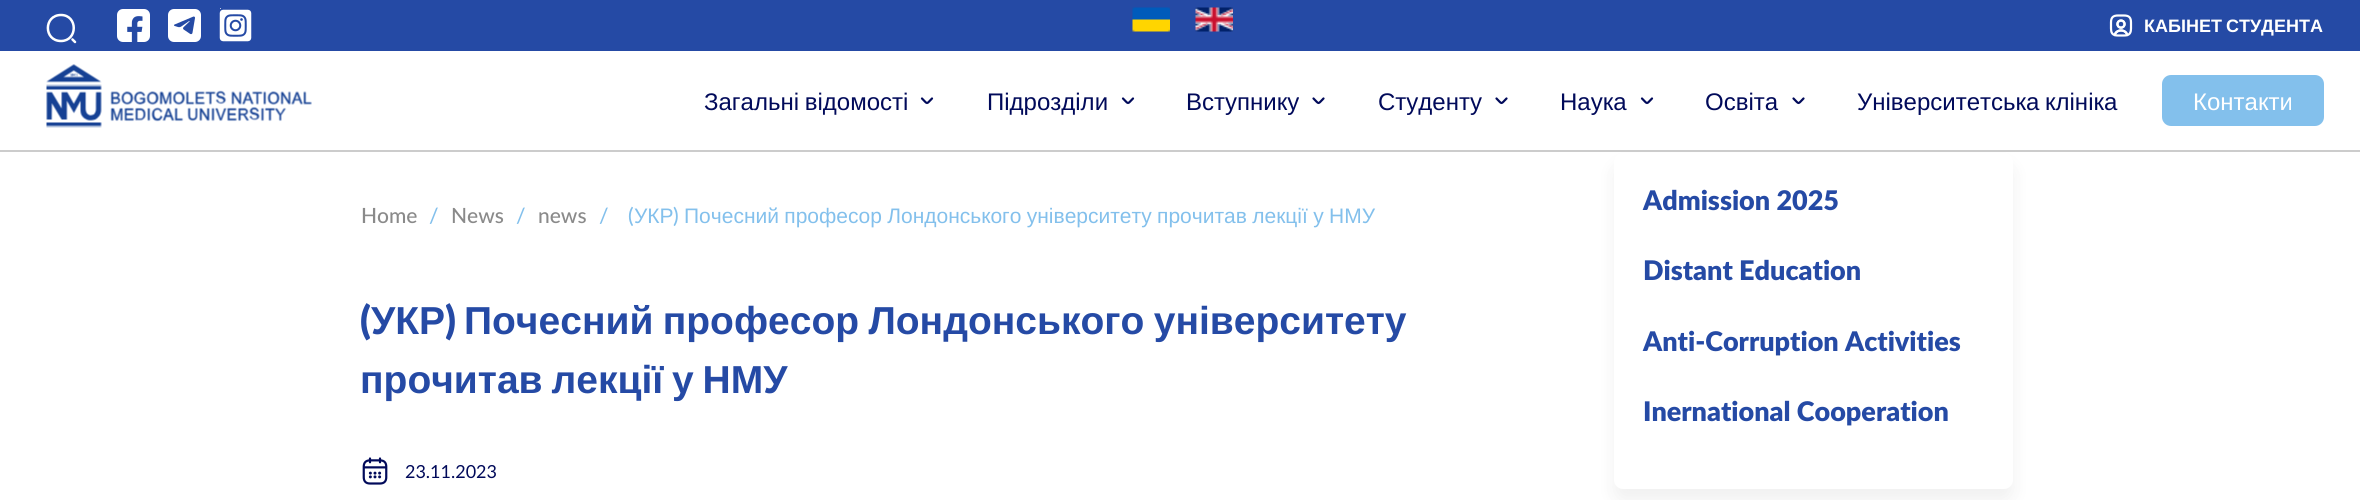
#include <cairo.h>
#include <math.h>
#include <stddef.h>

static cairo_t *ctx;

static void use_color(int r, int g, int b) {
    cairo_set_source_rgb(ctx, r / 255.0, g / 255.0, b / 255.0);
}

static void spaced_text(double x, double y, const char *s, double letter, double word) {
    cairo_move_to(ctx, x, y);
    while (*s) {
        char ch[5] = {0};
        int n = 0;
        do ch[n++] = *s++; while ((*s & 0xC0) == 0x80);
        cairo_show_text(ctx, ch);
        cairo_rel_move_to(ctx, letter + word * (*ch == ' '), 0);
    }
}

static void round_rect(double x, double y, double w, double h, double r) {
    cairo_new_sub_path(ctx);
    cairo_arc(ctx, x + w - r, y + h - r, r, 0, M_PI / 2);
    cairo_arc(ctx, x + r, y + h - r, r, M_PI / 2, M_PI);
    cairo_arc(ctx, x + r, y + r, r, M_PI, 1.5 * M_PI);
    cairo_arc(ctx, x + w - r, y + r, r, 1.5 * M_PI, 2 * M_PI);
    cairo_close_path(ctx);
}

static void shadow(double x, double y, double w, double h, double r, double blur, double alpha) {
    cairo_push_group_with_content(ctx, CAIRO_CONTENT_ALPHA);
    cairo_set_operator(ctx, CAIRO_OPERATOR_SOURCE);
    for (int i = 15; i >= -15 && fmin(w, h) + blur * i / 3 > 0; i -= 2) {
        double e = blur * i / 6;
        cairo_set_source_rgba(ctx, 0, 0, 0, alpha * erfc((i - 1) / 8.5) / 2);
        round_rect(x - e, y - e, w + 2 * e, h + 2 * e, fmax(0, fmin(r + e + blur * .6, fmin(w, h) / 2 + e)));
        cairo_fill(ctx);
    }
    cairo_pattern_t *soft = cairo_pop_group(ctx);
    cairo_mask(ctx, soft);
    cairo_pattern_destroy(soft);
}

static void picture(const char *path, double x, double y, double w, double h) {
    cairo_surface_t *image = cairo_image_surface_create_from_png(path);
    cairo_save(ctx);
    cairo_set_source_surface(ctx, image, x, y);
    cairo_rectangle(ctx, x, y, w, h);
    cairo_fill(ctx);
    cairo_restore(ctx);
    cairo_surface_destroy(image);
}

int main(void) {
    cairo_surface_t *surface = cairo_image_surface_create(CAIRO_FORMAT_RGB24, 2360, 500);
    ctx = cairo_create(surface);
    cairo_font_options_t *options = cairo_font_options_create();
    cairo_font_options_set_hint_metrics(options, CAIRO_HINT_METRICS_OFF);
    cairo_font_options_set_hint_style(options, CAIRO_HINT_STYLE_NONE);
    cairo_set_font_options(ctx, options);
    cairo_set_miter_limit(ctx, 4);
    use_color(255, 255, 255);
    cairo_paint(ctx);
    use_color(37, 74, 165);
    cairo_rectangle(ctx, 0, 0, 2360, 51);
    cairo_fill(ctx);
    cairo_new_path(ctx);
    cairo_move_to(ctx, 61, 41);
    cairo_curve_to(ctx, 78, 41, 78, 15, 61, 15);
    cairo_curve_to(ctx, 43.5, 15, 43.5, 41, 61, 41);
    cairo_close_path(ctx);
    cairo_move_to(ctx, 75, 42);
    cairo_line_to(ctx, 72.5, 39.5);
    use_color(255, 255, 255);
    cairo_set_line_width(ctx, 2.5);
    cairo_set_line_cap(ctx, CAIRO_LINE_CAP_ROUND);
    cairo_set_line_join(ctx, CAIRO_LINE_JOIN_ROUND);
    cairo_stroke(ctx);
    picture("img1.png", 117, 9, 33, 33);
    picture("img2.png", 168, 9, 33, 33);
    picture("img3.png", 219, 8, 33, 34);
    picture("img4.png", 1132, 7, 38, 25);
    picture("img5.png", 1195, 7, 38, 25);
    picture("img6.png", 2109, 14, 24, 23);
    cairo_select_font_face(ctx, "Liberation Sans", CAIRO_FONT_SLANT_NORMAL, CAIRO_FONT_WEIGHT_BOLD);
    cairo_set_font_size(ctx, 18);
    spaced_text(2144, 32, "КАБІНЕТ СТУДЕНТА", 0, -1);
    use_color(68, 68, 68);
    shadow(1614, 165, 399, 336, 9, 9, 0.08);
    use_color(204, 204, 204);
    cairo_rectangle(ctx, 0, 150, 2360, 2);
    cairo_fill(ctx);
    picture("img7.png", 46, 64, 266, 64);
    cairo_select_font_face(ctx, "Liberation Sans", CAIRO_FONT_SLANT_NORMAL, CAIRO_FONT_WEIGHT_NORMAL);
    cairo_set_font_size(ctx, 24);
    use_color(1, 10, 90);
    spaced_text(704, 110, "Загальні відомості", 0, -1);
    cairo_new_path(ctx);
    cairo_move_to(ctx, 932, 98.5);
    cairo_curve_to(ctx, 926, 104.5, 928, 104.5, 922, 98.5);
    cairo_set_line_width(ctx, 2.2);
    cairo_stroke(ctx);
    cairo_move_to(ctx, 987, 110);
    cairo_show_text(ctx, "Підрозділи");
    cairo_new_path(ctx);
    cairo_move_to(ctx, 1133, 98.5);
    cairo_curve_to(ctx, 1127, 104.5, 1129, 104.5, 1123, 98.5);
    cairo_stroke(ctx);
    cairo_move_to(ctx, 1186, 110);
    cairo_show_text(ctx, "Вступнику");
    cairo_new_path(ctx);
    cairo_move_to(ctx, 1323.5, 98.5);
    cairo_curve_to(ctx, 1317.5, 104.5, 1319.5, 104.5, 1313.5, 98.5);
    cairo_stroke(ctx);
    cairo_move_to(ctx, 1378, 110);
    cairo_show_text(ctx, "Студенту");
    cairo_new_path(ctx);
    cairo_move_to(ctx, 1506.5, 98.5);
    cairo_curve_to(ctx, 1500.5, 104.5, 1502.5, 104.5, 1496.5, 98.5);
    cairo_stroke(ctx);
    cairo_move_to(ctx, 1560, 110);
    cairo_show_text(ctx, "Наука");
    cairo_new_path(ctx);
    cairo_move_to(ctx, 1652, 98.5);
    cairo_curve_to(ctx, 1646, 104.5, 1648, 104.5, 1642, 98.5);
    cairo_stroke(ctx);
    cairo_move_to(ctx, 1705, 110);
    cairo_show_text(ctx, "Освіта");
    cairo_new_path(ctx);
    cairo_move_to(ctx, 1803.5, 98.5);
    cairo_curve_to(ctx, 1797.5, 104.5, 1799.5, 104.5, 1793.5, 98.5);
    cairo_stroke(ctx);
    spaced_text(1857, 110, "Університетська клініка", 0, -1);
    use_color(131, 192, 236);
    round_rect(2162, 75, 162, 51, 9);
    cairo_fill(ctx);
    use_color(255, 255, 255);
    cairo_move_to(ctx, 2193, 110);
    cairo_show_text(ctx, "Контакти");
    cairo_select_font_face(ctx, "Lato Medium", CAIRO_FONT_SLANT_NORMAL, CAIRO_FONT_WEIGHT_NORMAL);
    cairo_set_font_size(ctx, 21);
    use_color(138, 138, 138);
    cairo_move_to(ctx, 361, 223);
    cairo_show_text(ctx, "Home");
    use_color(131, 192, 236);
    cairo_move_to(ctx, 429, 223);
    cairo_show_text(ctx, "/");
    use_color(138, 138, 138);
    cairo_move_to(ctx, 451, 223);
    cairo_show_text(ctx, "News");
    use_color(131, 192, 236);
    cairo_move_to(ctx, 516, 223);
    cairo_show_text(ctx, "/");
    use_color(138, 138, 138);
    cairo_move_to(ctx, 538, 223);
    cairo_show_text(ctx, "news");
    use_color(131, 192, 236);
    cairo_move_to(ctx, 599, 223);
    cairo_show_text(ctx, "/");
    cairo_move_to(ctx, 628, 223);
    cairo_show_text(ctx, "(");
    cairo_select_font_face(ctx, "Liberation Sans", CAIRO_FONT_SLANT_NORMAL, CAIRO_FONT_WEIGHT_NORMAL);
    cairo_move_to(ctx, 634, 223);
    cairo_show_text(ctx, "УКР");
    cairo_select_font_face(ctx, "Lato Medium", CAIRO_FONT_SLANT_NORMAL, CAIRO_FONT_WEIGHT_NORMAL);
    cairo_move_to(ctx, 673, 223);
    cairo_show_text(ctx, ")");
    cairo_select_font_face(ctx, "Liberation Sans", CAIRO_FONT_SLANT_NORMAL, CAIRO_FONT_WEIGHT_NORMAL);
    spaced_text(684, 223, "Почесний професор Лондонського університету прочитав лекції у НМУ", 0, -0.5);
    cairo_select_font_face(ctx, "Lato ExtraBold", CAIRO_FONT_SLANT_NORMAL, CAIRO_FONT_WEIGHT_NORMAL);
    cairo_set_font_size(ctx, 39);
    use_color(37, 74, 165);
    cairo_move_to(ctx, 360, 334);
    cairo_show_text(ctx, "(");
    cairo_select_font_face(ctx, "Liberation Sans", CAIRO_FONT_SLANT_NORMAL, CAIRO_FONT_WEIGHT_BOLD);
    cairo_move_to(ctx, 371, 334);
    cairo_show_text(ctx, "УКР");
    cairo_select_font_face(ctx, "Lato ExtraBold", CAIRO_FONT_SLANT_NORMAL, CAIRO_FONT_WEIGHT_NORMAL);
    cairo_move_to(ctx, 445, 334);
    cairo_show_text(ctx, ")");
    cairo_select_font_face(ctx, "Liberation Sans", CAIRO_FONT_SLANT_NORMAL, CAIRO_FONT_WEIGHT_BOLD);
    spaced_text(464, 334, "Почесний професор Лондонського університету", 0, -1.5);
    spaced_text(360, 393, "прочитав лекції у НМУ", 0, -2);
    picture("img8.png", 362, 457, 26, 28);
    cairo_select_font_face(ctx, "Lato", CAIRO_FONT_SLANT_NORMAL, CAIRO_FONT_WEIGHT_NORMAL);
    cairo_set_font_size(ctx, 18);
    use_color(1, 10, 90);
    cairo_move_to(ctx, 405, 478);
    cairo_show_text(ctx, "23.11.2023");
    use_color(255, 255, 255);
    round_rect(1614, 153, 399, 336, 9);
    cairo_fill(ctx);
    cairo_select_font_face(ctx, "Lato ExtraBold", CAIRO_FONT_SLANT_NORMAL, CAIRO_FONT_WEIGHT_NORMAL);
    cairo_set_font_size(ctx, 27);
    use_color(37, 74, 165);
    cairo_move_to(ctx, 1643, 210);
    cairo_show_text(ctx, "Admission 2025");
    cairo_move_to(ctx, 1643, 280);
    cairo_show_text(ctx, "Distant Education");
    cairo_move_to(ctx, 1643, 351);
    cairo_show_text(ctx, "Anti-Corruption Activities");
    cairo_move_to(ctx, 1643, 421);
    cairo_show_text(ctx, "Inernational Cooperation");
    cairo_surface_write_to_png(surface, "result.png");
    cairo_font_options_destroy(options);
    cairo_destroy(ctx);
    cairo_surface_destroy(surface);
    return 0;
}
